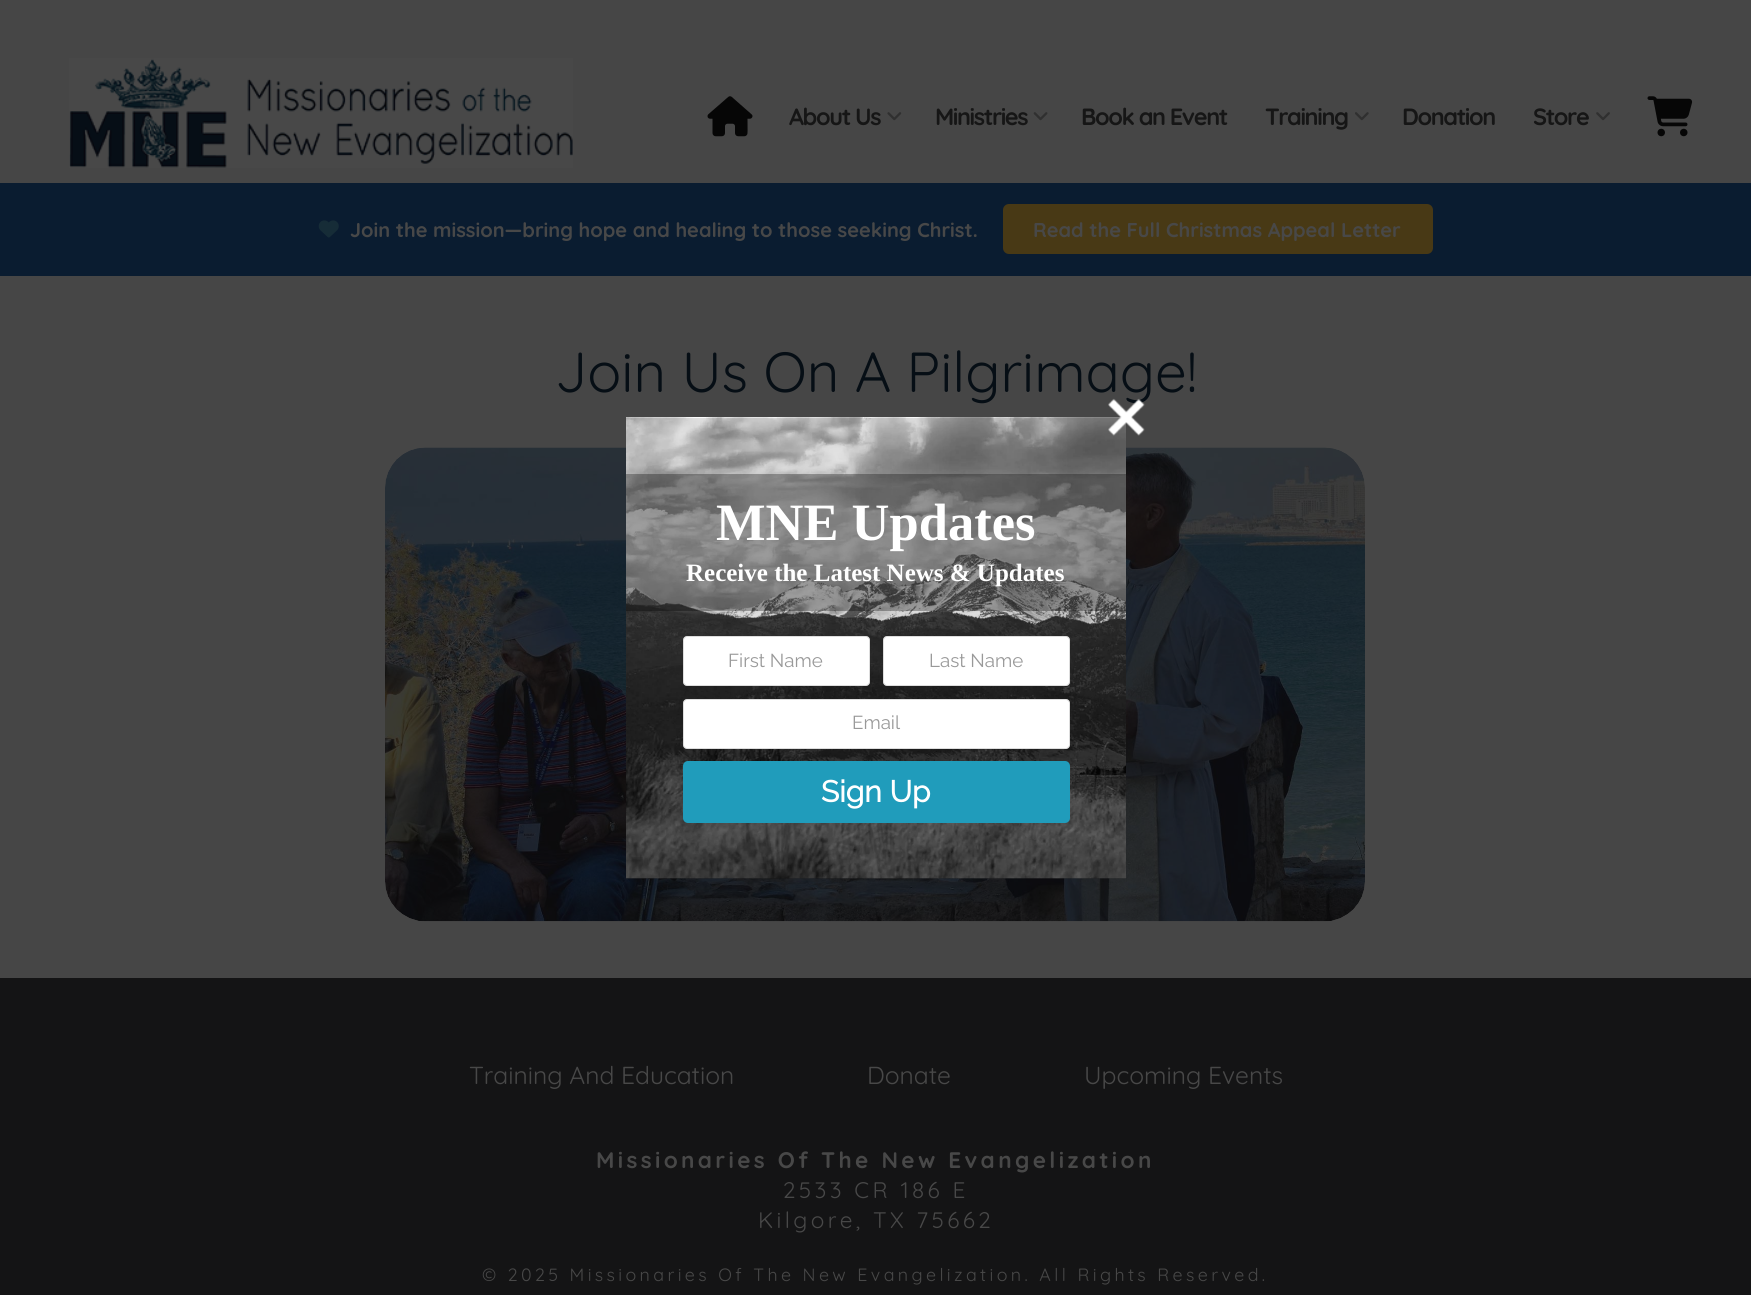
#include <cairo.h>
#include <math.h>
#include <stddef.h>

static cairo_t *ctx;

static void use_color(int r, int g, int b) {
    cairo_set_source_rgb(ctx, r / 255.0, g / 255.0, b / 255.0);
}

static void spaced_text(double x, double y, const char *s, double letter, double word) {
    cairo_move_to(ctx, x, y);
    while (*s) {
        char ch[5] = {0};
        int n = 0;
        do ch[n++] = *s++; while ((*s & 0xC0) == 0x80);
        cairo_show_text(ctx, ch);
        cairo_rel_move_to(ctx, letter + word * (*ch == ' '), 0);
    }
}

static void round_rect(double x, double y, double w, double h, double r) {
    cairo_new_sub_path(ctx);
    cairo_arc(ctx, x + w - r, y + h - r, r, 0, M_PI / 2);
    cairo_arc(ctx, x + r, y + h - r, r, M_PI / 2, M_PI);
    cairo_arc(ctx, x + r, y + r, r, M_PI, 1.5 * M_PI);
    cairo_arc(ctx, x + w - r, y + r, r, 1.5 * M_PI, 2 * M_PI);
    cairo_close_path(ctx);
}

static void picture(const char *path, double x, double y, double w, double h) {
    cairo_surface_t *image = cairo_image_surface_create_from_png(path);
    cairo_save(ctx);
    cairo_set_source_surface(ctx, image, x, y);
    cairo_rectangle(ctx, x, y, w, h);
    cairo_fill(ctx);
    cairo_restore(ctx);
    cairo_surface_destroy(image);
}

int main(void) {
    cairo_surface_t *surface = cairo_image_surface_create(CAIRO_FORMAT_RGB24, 1751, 1295);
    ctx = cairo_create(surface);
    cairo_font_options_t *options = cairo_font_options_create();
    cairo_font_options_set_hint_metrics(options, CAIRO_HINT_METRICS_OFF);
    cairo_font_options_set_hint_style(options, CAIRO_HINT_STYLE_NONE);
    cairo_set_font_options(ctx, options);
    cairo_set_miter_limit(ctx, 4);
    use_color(70, 70, 70);
    cairo_paint(ctx);
    picture("img1.png", 69, 58, 504, 110);
    picture("img2.png", 707, 96, 46, 41);
    cairo_select_font_face(ctx, "Quicksand", CAIRO_FONT_SLANT_NORMAL, CAIRO_FONT_WEIGHT_BOLD);
    cairo_set_font_size(ctx, 23.5);
    use_color(22, 22, 22);
    spaced_text(789, 125, "About Us", -1.4, 0);
    picture("img3.png", 887, 112, 15, 9);
    spaced_text(935, 125, "Ministries", -1.4, 0);
    picture("img4.png", 1033, 112, 15, 9);
    spaced_text(1081, 125, "Book an Event", -1.4, 0);
    spaced_text(1265, 125, "Training", -1.4, 0);
    picture("img5.png", 1355, 112, 14, 9);
    spaced_text(1402, 125, "Donation", -1.4, 0);
    spaced_text(1533, 125, "Store", -1.4, 0);
    picture("img6.png", 1596, 112, 14, 9);
    picture("img7.png", 1647, 96, 46, 41);
    use_color(10, 28, 48);
    cairo_rectangle(ctx, 0, 183, 1751, 93);
    cairo_fill(ctx);
    picture("img8.png", 318, 220, 21, 18);
    cairo_set_font_size(ctx, 20);
    use_color(72, 72, 72);
    cairo_move_to(ctx, 350, 237);
    cairo_show_text(ctx, "Join the mission—bring hope and healing to those seeking Christ.");
    use_color(72, 57, 21);
    round_rect(1003, 204, 430, 50, 6);
    cairo_fill(ctx);
    use_color(72, 72, 72);
    cairo_move_to(ctx, 1033, 237);
    cairo_show_text(ctx, "Read the Full Christmas Appeal Letter");
    cairo_select_font_face(ctx, "Quicksand", CAIRO_FONT_SLANT_NORMAL, CAIRO_FONT_WEIGHT_NORMAL);
    cairo_set_font_size(ctx, 56.4);
    use_color(6, 14, 21);
    cairo_move_to(ctx, 555, 392);
    cairo_show_text(ctx, "Join Us On A Pilgrimage!");
    picture("img9.png", 385, 447, 980, 475);
    use_color(20, 20, 21);
    cairo_rectangle(ctx, 0, 978, 1751, 317);
    cairo_fill(ctx);
    cairo_set_font_size(ctx, 24.6);
    use_color(72, 72, 72);
    cairo_move_to(ctx, 469, 1084);
    cairo_show_text(ctx, "Training And Education");
    cairo_move_to(ctx, 867, 1084);
    cairo_show_text(ctx, "Donate");
    cairo_move_to(ctx, 1084, 1084);
    cairo_show_text(ctx, "Upcoming Events");
    cairo_select_font_face(ctx, "Quicksand", CAIRO_FONT_SLANT_NORMAL, CAIRO_FONT_WEIGHT_BOLD);
    cairo_set_font_size(ctx, 22.5);
    spaced_text(596, 1168, "Missionaries Of The New Evangelization", 3.38, 0);
    cairo_select_font_face(ctx, "Quicksand", CAIRO_FONT_SLANT_NORMAL, CAIRO_FONT_WEIGHT_NORMAL);
    spaced_text(783, 1198, "2533 CR 186 E", 3.38, 0);
    spaced_text(758, 1228, "Kilgore, TX 75662", 3.38, 0);
    cairo_set_font_size(ctx, 17.8);
    spaced_text(482, 1281, "© 2025 Missionaries Of The New Evangelization. All Rights Reserved.", 3.38, 0);
    picture("img11.png", 626, 417, 500, 462);
    cairo_set_source_rgba(ctx, 0, 0, 0, 0.12);
    cairo_rectangle(ctx, 626, 418, 500, 461);
    cairo_fill(ctx);
    picture("img10.png", 1108, 398, 37, 38);
    cairo_set_source_rgba(ctx, 0, 0, 0, 0.3);
    cairo_rectangle(ctx, 626, 474, 500, 137);
    cairo_fill(ctx);
    cairo_select_font_face(ctx, "Liberation Serif", CAIRO_FONT_SLANT_NORMAL, CAIRO_FONT_WEIGHT_BOLD);
    cairo_set_font_size(ctx, 52.5);
    use_color(255, 255, 255);
    cairo_move_to(ctx, 716, 540);
    cairo_show_text(ctx, "MNE Updates");
    cairo_set_font_size(ctx, 25);
    cairo_move_to(ctx, 686, 581);
    cairo_show_text(ctx, "Receive the Latest News & Updates");
    round_rect(683.5, 636.5, 186, 49, 3.5);
    cairo_fill_preserve(ctx);
    use_color(221, 221, 221);
    cairo_set_line_width(ctx, 1);
    cairo_stroke(ctx);
    cairo_select_font_face(ctx, "Raleway Thin", CAIRO_FONT_SLANT_NORMAL, CAIRO_FONT_WEIGHT_NORMAL);
    cairo_set_font_size(ctx, 18.75);
    use_color(153, 153, 153);
    cairo_move_to(ctx, 728, 667);
    cairo_show_text(ctx, "First Name");
    use_color(255, 255, 255);
    round_rect(883.5, 636.5, 186, 49, 3.5);
    cairo_fill_preserve(ctx);
    use_color(221, 221, 221);
    cairo_stroke(ctx);
    use_color(153, 153, 153);
    cairo_move_to(ctx, 929, 667);
    cairo_show_text(ctx, "Last Name");
    use_color(255, 255, 255);
    round_rect(683.5, 699.5, 386, 49, 3.5);
    cairo_fill_preserve(ctx);
    use_color(221, 221, 221);
    cairo_stroke(ctx);
    use_color(153, 153, 153);
    cairo_move_to(ctx, 852, 729);
    cairo_show_text(ctx, "Email");
    use_color(32, 156, 187);
    round_rect(683, 761, 387, 62, 5);
    cairo_fill(ctx);
    cairo_select_font_face(ctx, "Raleway", CAIRO_FONT_SLANT_NORMAL, CAIRO_FONT_WEIGHT_BOLD);
    cairo_set_font_size(ctx, 30);
    use_color(255, 255, 255);
    cairo_move_to(ctx, 821, 802);
    cairo_show_text(ctx, "Sign Up");
    cairo_surface_write_to_png(surface, "result.png");
    cairo_font_options_destroy(options);
    cairo_destroy(ctx);
    cairo_surface_destroy(surface);
    return 0;
}
